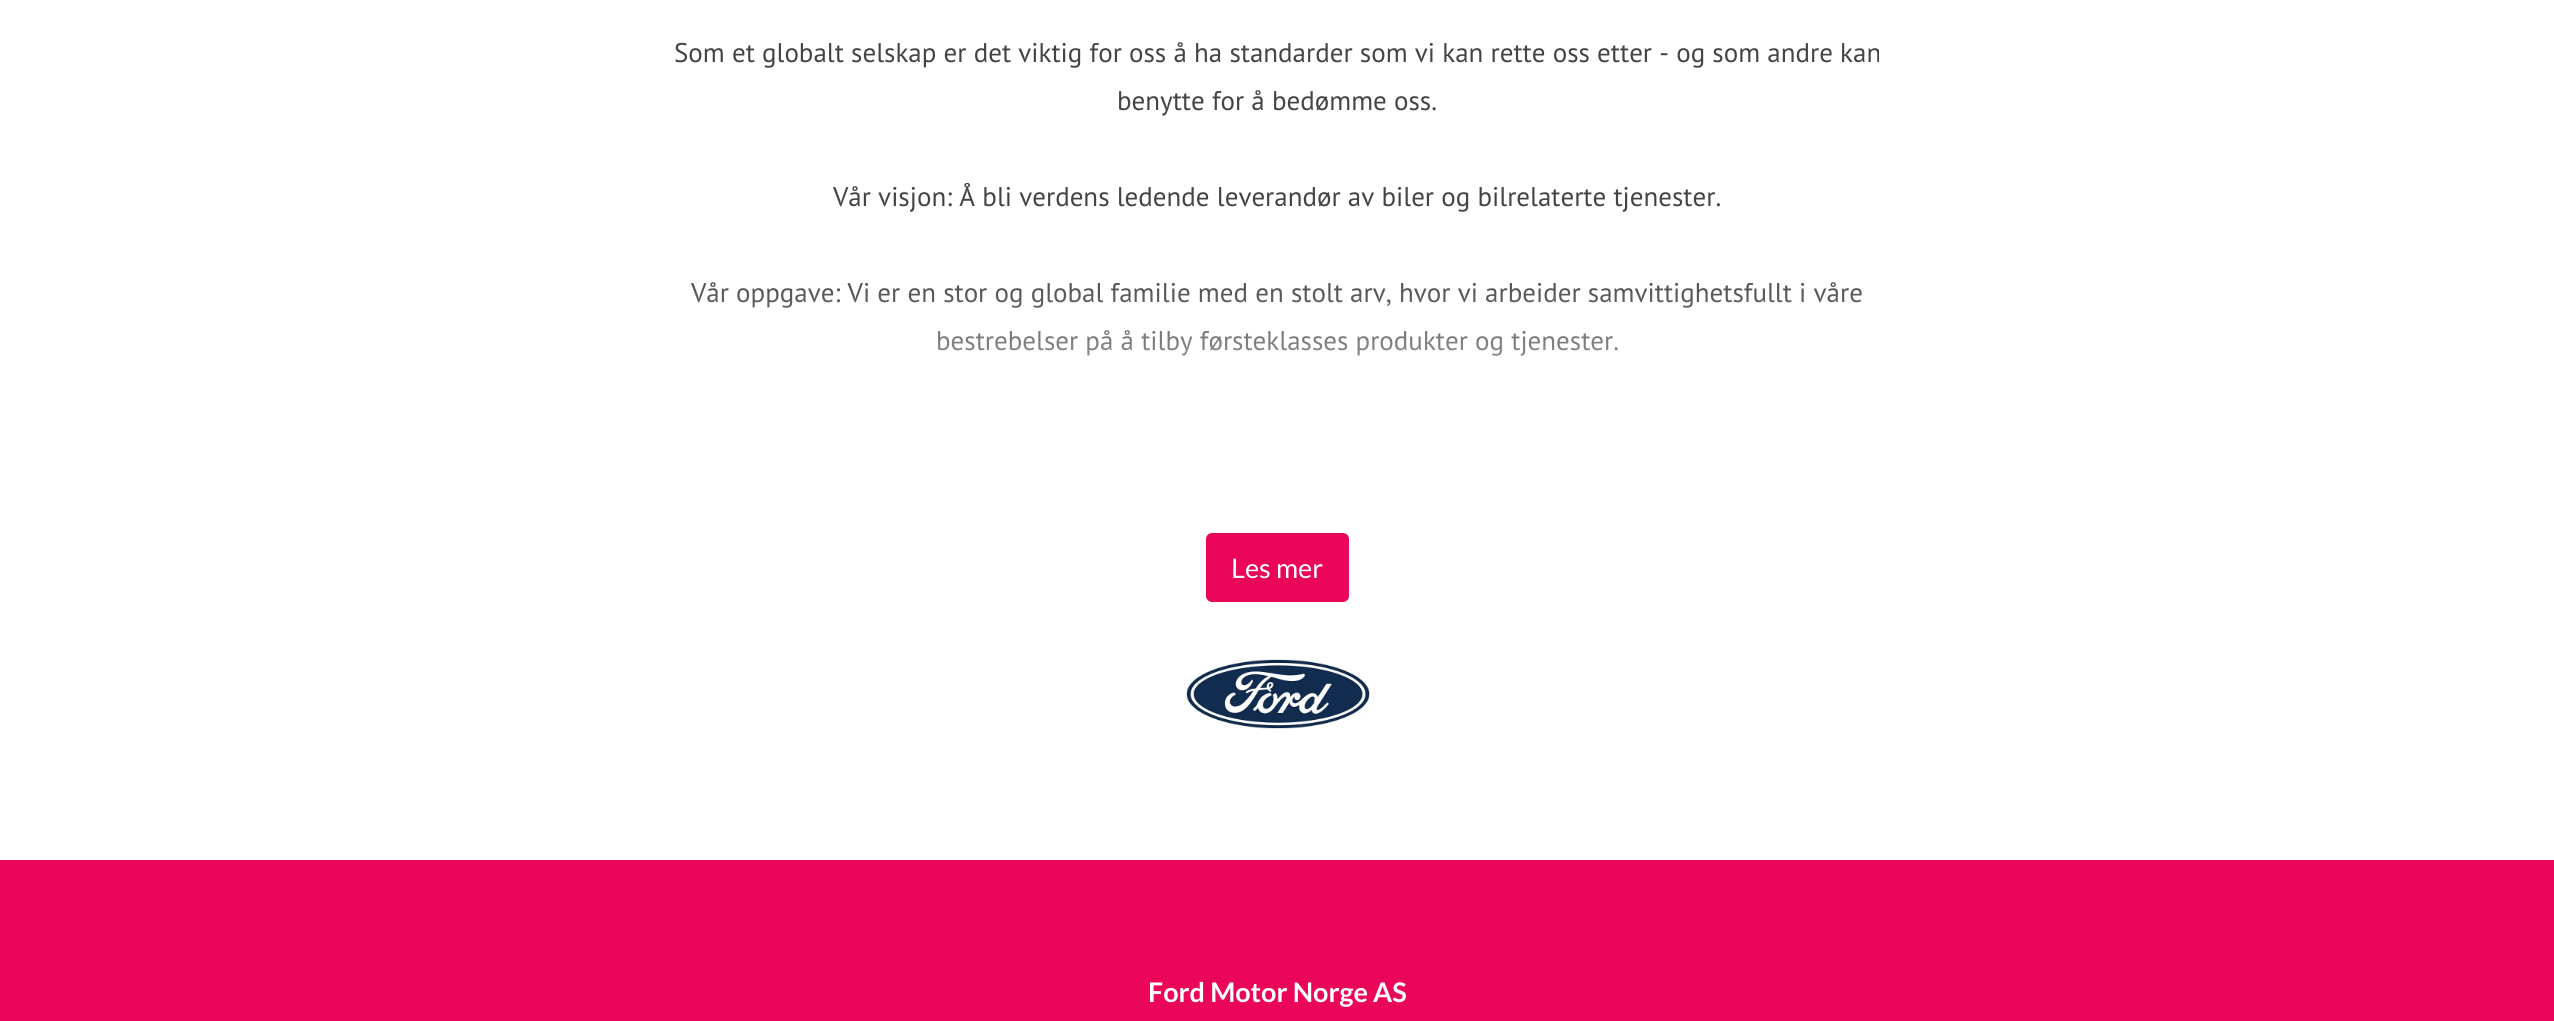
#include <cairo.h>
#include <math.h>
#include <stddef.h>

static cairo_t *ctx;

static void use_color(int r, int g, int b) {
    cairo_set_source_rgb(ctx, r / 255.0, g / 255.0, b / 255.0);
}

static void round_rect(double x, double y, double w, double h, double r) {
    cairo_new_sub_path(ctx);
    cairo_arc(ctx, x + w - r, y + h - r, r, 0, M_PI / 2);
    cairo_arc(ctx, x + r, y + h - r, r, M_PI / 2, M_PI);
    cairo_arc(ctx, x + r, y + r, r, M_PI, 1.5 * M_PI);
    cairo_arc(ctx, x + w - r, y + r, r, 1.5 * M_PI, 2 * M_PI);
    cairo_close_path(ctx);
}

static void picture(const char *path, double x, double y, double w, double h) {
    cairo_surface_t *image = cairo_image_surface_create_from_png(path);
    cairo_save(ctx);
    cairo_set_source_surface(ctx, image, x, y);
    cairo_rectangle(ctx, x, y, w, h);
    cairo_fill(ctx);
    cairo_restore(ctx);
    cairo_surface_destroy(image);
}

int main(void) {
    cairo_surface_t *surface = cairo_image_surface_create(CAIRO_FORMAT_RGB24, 2554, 1021);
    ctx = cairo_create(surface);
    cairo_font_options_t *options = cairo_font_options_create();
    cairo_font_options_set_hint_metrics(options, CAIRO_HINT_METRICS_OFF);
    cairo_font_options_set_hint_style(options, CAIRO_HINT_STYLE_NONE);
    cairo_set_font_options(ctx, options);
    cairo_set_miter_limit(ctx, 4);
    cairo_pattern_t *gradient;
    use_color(255, 255, 255);
    cairo_paint(ctx);
    cairo_select_font_face(ctx, "PT Sans", CAIRO_FONT_SLANT_NORMAL, CAIRO_FONT_WEIGHT_NORMAL);
    cairo_set_font_size(ctx, 27);
    use_color(68, 68, 68);
    cairo_move_to(ctx, 674, 62);
    cairo_show_text(ctx, "Som et globalt selskap er det viktig for oss å ha standarder som vi kan rette oss etter - og som andre kan");
    cairo_move_to(ctx, 1117, 110);
    cairo_show_text(ctx, "benytte for å bedømme oss.");
    cairo_move_to(ctx, 833, 206);
    cairo_show_text(ctx, "Vår visjon: Å bli verdens ledende leverandør av biler og bilrelaterte tjenester.");
    cairo_move_to(ctx, 691, 302);
    cairo_show_text(ctx, "Vår oppgave: Vi er en stor og global familie med en stolt arv, hvor vi arbeider samvittighetsfullt i våre");
    cairo_move_to(ctx, 936, 350);
    cairo_show_text(ctx, "bestrebelser på å tilby førsteklasses produkter og tjenester.");
    gradient = cairo_pattern_create_linear(1277, 267, 1277, 507);
    cairo_pattern_add_color_stop_rgba(gradient, 0, 1, 1, 1, 0);
    cairo_pattern_add_color_stop_rgba(gradient, 1, 1, 1, 1, 1);
    cairo_set_source(ctx, gradient);
    cairo_pattern_destroy(gradient);
    cairo_rectangle(ctx, 691, 282, 1171, 74);
    cairo_fill(ctx);
    use_color(234, 6, 88);
    round_rect(1207, 534, 141, 67, 5);
    cairo_fill_preserve(ctx);
    cairo_stroke(ctx);
    cairo_select_font_face(ctx, "Lato", CAIRO_FONT_SLANT_NORMAL, CAIRO_FONT_WEIGHT_NORMAL);
    use_color(255, 255, 255);
    cairo_move_to(ctx, 1231, 578);
    cairo_show_text(ctx, "Les mer");
    picture("img1.png", 1185, 659, 185, 70);
    use_color(234, 6, 88);
    cairo_rectangle(ctx, 0, 860, 2554, 161);
    cairo_fill(ctx);
    cairo_select_font_face(ctx, "Lato", CAIRO_FONT_SLANT_NORMAL, CAIRO_FONT_WEIGHT_BOLD);
    use_color(255, 255, 255);
    cairo_move_to(ctx, 1148, 1002);
    cairo_show_text(ctx, "Ford Motor Norge AS");
    cairo_surface_write_to_png(surface, "result.png");
    cairo_font_options_destroy(options);
    cairo_destroy(ctx);
    cairo_surface_destroy(surface);
    return 0;
}
